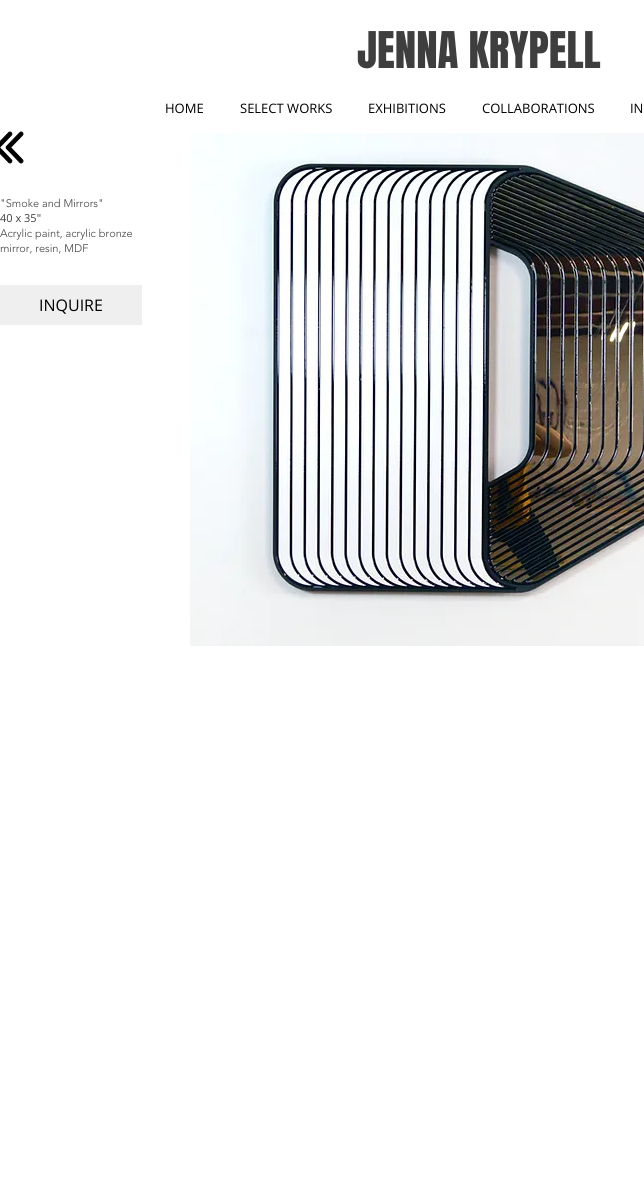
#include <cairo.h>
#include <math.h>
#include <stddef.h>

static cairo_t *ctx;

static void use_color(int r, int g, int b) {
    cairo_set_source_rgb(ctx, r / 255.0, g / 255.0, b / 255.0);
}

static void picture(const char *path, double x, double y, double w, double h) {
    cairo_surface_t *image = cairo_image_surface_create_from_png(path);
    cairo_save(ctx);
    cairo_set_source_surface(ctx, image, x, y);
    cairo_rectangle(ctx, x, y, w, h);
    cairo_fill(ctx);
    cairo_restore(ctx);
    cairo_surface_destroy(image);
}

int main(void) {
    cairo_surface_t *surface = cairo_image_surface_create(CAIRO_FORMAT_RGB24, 644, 1203);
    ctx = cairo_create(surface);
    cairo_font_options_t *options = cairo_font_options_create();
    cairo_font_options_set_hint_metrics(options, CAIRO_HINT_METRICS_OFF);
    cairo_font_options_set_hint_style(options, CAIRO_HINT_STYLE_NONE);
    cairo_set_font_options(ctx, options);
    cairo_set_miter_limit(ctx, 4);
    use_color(255, 255, 255);
    cairo_paint(ctx);
    cairo_select_font_face(ctx, "Anton", CAIRO_FONT_SLANT_NORMAL, CAIRO_FONT_WEIGHT_NORMAL);
    cairo_set_font_size(ctx, 43);
    use_color(62, 62, 62);
    cairo_move_to(ctx, 357, 68);
    cairo_show_text(ctx, "JENNA KRYPELL");
    cairo_select_font_face(ctx, "Open Sans", CAIRO_FONT_SLANT_NORMAL, CAIRO_FONT_WEIGHT_NORMAL);
    cairo_set_font_size(ctx, 13);
    use_color(0, 0, 0);
    cairo_move_to(ctx, 165, 113);
    cairo_show_text(ctx, "HOME");
    cairo_move_to(ctx, 240, 113);
    cairo_show_text(ctx, "SELECT WORKS");
    cairo_move_to(ctx, 368, 113);
    cairo_show_text(ctx, "EXHIBITIONS");
    cairo_move_to(ctx, 482, 113);
    cairo_show_text(ctx, "COLLABORATIONS");
    cairo_move_to(ctx, 630, 113);
    cairo_show_text(ctx, "IN");
    picture("img1.png", 0, 131, 24, 33);
    picture("img2.png", 190, 133, 454, 513);
    cairo_select_font_face(ctx, "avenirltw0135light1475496 Light", CAIRO_FONT_SLANT_NORMAL, CAIRO_FONT_WEIGHT_NORMAL);
    cairo_set_font_size(ctx, 11);
    use_color(62, 62, 62);
    cairo_move_to(ctx, 0, 207);
    cairo_show_text(ctx, "\"Smoke and Mirrors\"");
    cairo_select_font_face(ctx, "Open Sans", CAIRO_FONT_SLANT_NORMAL, CAIRO_FONT_WEIGHT_NORMAL);
    cairo_move_to(ctx, 0, 222);
    cairo_show_text(ctx, "40 x 35\"");
    cairo_select_font_face(ctx, "avenirltw0135light1475496 Light", CAIRO_FONT_SLANT_NORMAL, CAIRO_FONT_WEIGHT_NORMAL);
    cairo_move_to(ctx, 0, 237);
    cairo_show_text(ctx, "Acrylic paint, acrylic bronze");
    cairo_move_to(ctx, 0, 252);
    cairo_show_text(ctx, "mirror, resin, MDF");
    use_color(239, 239, 239);
    cairo_rectangle(ctx, 0, 285, 142, 40);
    cairo_fill(ctx);
    cairo_select_font_face(ctx, "Open Sans", CAIRO_FONT_SLANT_NORMAL, CAIRO_FONT_WEIGHT_NORMAL);
    cairo_set_font_size(ctx, 16);
    use_color(0, 0, 0);
    cairo_move_to(ctx, 39, 311);
    cairo_show_text(ctx, "INQUIRE");
    cairo_surface_write_to_png(surface, "result.png");
    cairo_font_options_destroy(options);
    cairo_destroy(ctx);
    cairo_surface_destroy(surface);
    return 0;
}
